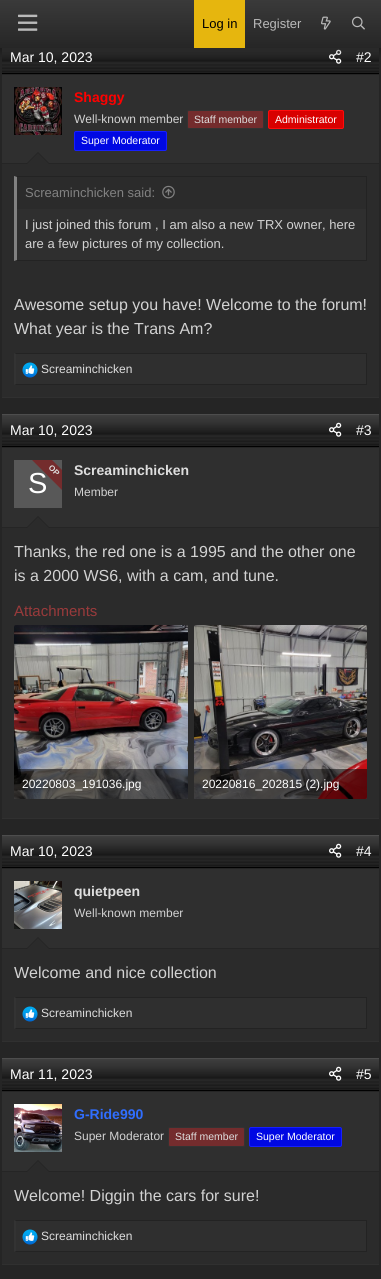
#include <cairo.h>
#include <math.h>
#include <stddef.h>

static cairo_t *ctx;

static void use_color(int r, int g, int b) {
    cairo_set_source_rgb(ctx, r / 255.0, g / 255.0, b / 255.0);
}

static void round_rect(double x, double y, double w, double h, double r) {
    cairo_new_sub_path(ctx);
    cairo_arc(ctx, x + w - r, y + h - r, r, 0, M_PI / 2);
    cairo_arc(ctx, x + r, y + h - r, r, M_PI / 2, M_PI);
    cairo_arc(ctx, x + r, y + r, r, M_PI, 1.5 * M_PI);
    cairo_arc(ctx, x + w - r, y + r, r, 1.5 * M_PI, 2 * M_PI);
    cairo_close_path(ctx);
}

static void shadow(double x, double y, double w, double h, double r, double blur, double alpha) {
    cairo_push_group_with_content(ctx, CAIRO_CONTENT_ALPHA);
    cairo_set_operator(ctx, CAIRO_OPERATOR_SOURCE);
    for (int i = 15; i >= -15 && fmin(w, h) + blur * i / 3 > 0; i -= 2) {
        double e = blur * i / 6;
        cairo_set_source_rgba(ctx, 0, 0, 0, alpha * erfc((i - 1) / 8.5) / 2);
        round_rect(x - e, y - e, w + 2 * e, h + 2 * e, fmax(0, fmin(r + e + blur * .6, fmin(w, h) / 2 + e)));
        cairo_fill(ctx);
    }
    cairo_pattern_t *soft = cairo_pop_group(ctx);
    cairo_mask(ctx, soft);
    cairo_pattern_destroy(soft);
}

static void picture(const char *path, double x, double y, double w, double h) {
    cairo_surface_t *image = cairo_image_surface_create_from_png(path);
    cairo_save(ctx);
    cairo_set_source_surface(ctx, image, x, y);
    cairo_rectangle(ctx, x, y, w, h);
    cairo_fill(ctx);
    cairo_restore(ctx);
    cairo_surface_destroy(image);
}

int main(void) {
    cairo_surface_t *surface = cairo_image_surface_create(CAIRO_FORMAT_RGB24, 381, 1279);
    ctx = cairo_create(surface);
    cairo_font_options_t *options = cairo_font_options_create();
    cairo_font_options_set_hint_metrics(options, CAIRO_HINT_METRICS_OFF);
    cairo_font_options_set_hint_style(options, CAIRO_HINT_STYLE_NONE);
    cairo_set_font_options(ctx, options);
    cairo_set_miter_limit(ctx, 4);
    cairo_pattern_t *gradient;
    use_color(37, 37, 37);
    cairo_paint(ctx);
    picture("img4.png", 2, 48, 377, 26);
    picture("img5.png", 329, 49, 13, 15);
    use_color(0, 0, 0);
    shadow(-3, -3, 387, 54, 0, 4, 0.3);
    gradient = cairo_pattern_create_linear(191, 0, 191, 48);
    cairo_pattern_add_color_stop_rgba(gradient, 0, 0.227, 0.227, 0.227, 1);
    cairo_pattern_add_color_stop_rgba(gradient, 1, 0.149, 0.149, 0.149, 1);
    cairo_set_source(ctx, gradient);
    cairo_pattern_destroy(gradient);
    cairo_rectangle(ctx, 0, 0, 381, 48);
    cairo_fill(ctx);
    picture("img1.png", 18, 14, 20, 17);
    use_color(230, 182, 14);
    cairo_rectangle(ctx, 194, 0, 51, 48);
    cairo_fill(ctx);
    cairo_select_font_face(ctx, "Liberation Sans", CAIRO_FONT_SLANT_NORMAL, CAIRO_FONT_WEIGHT_NORMAL);
    cairo_set_font_size(ctx, 13);
    use_color(0, 0, 0);
    cairo_move_to(ctx, 202, 28);
    cairo_show_text(ctx, "Log in");
    use_color(186, 186, 186);
    cairo_move_to(ctx, 253, 28);
    cairo_show_text(ctx, "Register");
    picture("img2.png", 321, 16, 10, 14);
    picture("img3.png", 352, 16, 13, 14);
    use_color(43, 43, 43);
    cairo_rectangle(ctx, 2, 164, 377, 233);
    cairo_fill(ctx);
    use_color(48, 48, 48);
    cairo_rectangle(ctx, 2, 397, 377, 1);
    cairo_fill(ctx);
    cairo_set_font_size(ctx, 14);
    use_color(255, 255, 255);
    cairo_move_to(ctx, 10, 62);
    cairo_show_text(ctx, "Mar 10, 2023");
    cairo_move_to(ctx, 356, 62);
    cairo_show_text(ctx, "#2");
    use_color(47, 47, 47);
    cairo_rectangle(ctx, 2, 75, 377, 88);
    cairo_fill(ctx);
    picture("img6.png", 14, 87, 48, 48);
    cairo_select_font_face(ctx, "Liberation Sans", CAIRO_FONT_SLANT_NORMAL, CAIRO_FONT_WEIGHT_BOLD);
    use_color(255, 0, 0);
    cairo_move_to(ctx, 74, 102);
    cairo_show_text(ctx, "Shaggy");
    cairo_select_font_face(ctx, "Liberation Sans", CAIRO_FONT_SLANT_NORMAL, CAIRO_FONT_WEIGHT_NORMAL);
    cairo_set_font_size(ctx, 12);
    use_color(210, 210, 210);
    cairo_move_to(ctx, 74, 123);
    cairo_show_text(ctx, "Well-known member");
    use_color(116, 44, 45);
    round_rect(187.5, 110.5, 76, 18, 1.5);
    cairo_fill_preserve(ctx);
    use_color(51, 51, 51);
    cairo_set_line_width(ctx, 1);
    cairo_stroke(ctx);
    cairo_set_font_size(ctx, 10.5);
    use_color(222, 222, 222);
    cairo_move_to(ctx, 194, 123);
    cairo_show_text(ctx, "Staff member");
    use_color(216, 0, 0);
    round_rect(268.5, 110.5, 75, 18, 1.5);
    cairo_fill_preserve(ctx);
    use_color(255, 12, 12);
    cairo_stroke(ctx);
    use_color(255, 255, 255);
    cairo_move_to(ctx, 275, 123);
    cairo_show_text(ctx, "Administrator");
    use_color(0, 8, 227);
    round_rect(74.5, 131.5, 92, 19, 1.5);
    cairo_fill_preserve(ctx);
    use_color(23, 31, 255);
    cairo_stroke(ctx);
    use_color(255, 255, 255);
    cairo_move_to(ctx, 81, 144);
    cairo_show_text(ctx, "Super Moderator");
    use_color(35, 35, 35);
    cairo_new_path(ctx);
    cairo_move_to(ctx, 50, 164);
    cairo_line_to(ctx, 26, 164);
    cairo_line_to(ctx, 38, 152);
    cairo_close_path(ctx);
    cairo_fill(ctx);
    use_color(43, 43, 43);
    cairo_new_path(ctx);
    cairo_move_to(ctx, 49, 164);
    cairo_line_to(ctx, 27, 164);
    cairo_line_to(ctx, 38, 153);
    cairo_close_path(ctx);
    cairo_fill(ctx);
    use_color(47, 47, 47);
    cairo_rectangle(ctx, 17, 209, 349, 51);
    cairo_fill(ctx);
    use_color(35, 35, 35);
    cairo_new_path(ctx);
    cairo_move_to(ctx, 14, 176);
    cairo_line_to(ctx, 367, 176);
    cairo_line_to(ctx, 366, 177);
    cairo_line_to(ctx, 17, 177);
    cairo_close_path(ctx);
    cairo_fill(ctx);
    cairo_rectangle(ctx, 366, 176, 1, 85);
    cairo_fill(ctx);
    cairo_new_path(ctx);
    cairo_move_to(ctx, 367, 261);
    cairo_line_to(ctx, 14, 261);
    cairo_line_to(ctx, 17, 260);
    cairo_line_to(ctx, 366, 260);
    cairo_close_path(ctx);
    cairo_fill(ctx);
    use_color(129, 129, 129);
    cairo_new_path(ctx);
    cairo_move_to(ctx, 14, 261);
    cairo_line_to(ctx, 14, 176);
    cairo_line_to(ctx, 17, 177);
    cairo_line_to(ctx, 17, 260);
    cairo_close_path(ctx);
    cairo_fill(ctx);
    cairo_set_font_size(ctx, 13);
    cairo_move_to(ctx, 25, 197);
    cairo_show_text(ctx, "Screaminchicken said:");
    picture("img7.png", 162, 185, 13, 14);
    use_color(210, 210, 210);
    cairo_move_to(ctx, 25, 229);
    cairo_show_text(ctx, "I just joined this forum , I am also a new TRX owner, here");
    cairo_move_to(ctx, 25, 248);
    cairo_show_text(ctx, "are a few pictures of my collection.");
    cairo_set_font_size(ctx, 16);
    cairo_move_to(ctx, 14, 310);
    cairo_show_text(ctx, "Awesome setup you have! Welcome to the forum!");
    cairo_move_to(ctx, 14, 334);
    cairo_show_text(ctx, "What year is the Trans Am?");
    use_color(47, 47, 47);
    cairo_rectangle(ctx, 16, 354, 350, 30);
    cairo_fill(ctx);
    use_color(35, 35, 35);
    cairo_new_path(ctx);
    cairo_move_to(ctx, 14, 353);
    cairo_line_to(ctx, 367, 353);
    cairo_line_to(ctx, 366, 354);
    cairo_line_to(ctx, 16, 354);
    cairo_close_path(ctx);
    cairo_fill(ctx);
    cairo_rectangle(ctx, 366, 353, 1, 32);
    cairo_fill(ctx);
    cairo_new_path(ctx);
    cairo_move_to(ctx, 367, 385);
    cairo_line_to(ctx, 14, 385);
    cairo_line_to(ctx, 16, 384);
    cairo_line_to(ctx, 366, 384);
    cairo_close_path(ctx);
    cairo_fill(ctx);
    use_color(51, 51, 51);
    cairo_new_path(ctx);
    cairo_move_to(ctx, 14, 385);
    cairo_line_to(ctx, 14, 353);
    cairo_line_to(ctx, 16, 354);
    cairo_line_to(ctx, 16, 384);
    cairo_close_path(ctx);
    cairo_fill(ctx);
    picture("img8.png", 22, 362, 16, 16);
    cairo_set_font_size(ctx, 12);
    use_color(222, 222, 222);
    cairo_move_to(ctx, 41, 373);
    cairo_show_text(ctx, "Screaminchicken");
    use_color(43, 43, 43);
    cairo_rectangle(ctx, 2, 528, 377, 290);
    cairo_fill(ctx);
    use_color(48, 48, 48);
    cairo_rectangle(ctx, 2, 818, 377, 1);
    cairo_fill(ctx);
    picture("img9.png", 2, 414, 377, 33);
    cairo_set_font_size(ctx, 14);
    use_color(255, 255, 255);
    cairo_move_to(ctx, 10, 435);
    cairo_show_text(ctx, "Mar 10, 2023");
    picture("img5.png", 329, 422, 13, 15);
    cairo_move_to(ctx, 356, 435);
    cairo_show_text(ctx, "#3");
    use_color(47, 47, 47);
    cairo_rectangle(ctx, 2, 448, 377, 79);
    cairo_fill(ctx);
    use_color(88, 88, 88);
    cairo_rectangle(ctx, 14, 460, 48, 48);
    cairo_fill(ctx);
    cairo_set_font_size(ctx, 29);
    use_color(255, 255, 255);
    cairo_move_to(ctx, 28, 493);
    cairo_show_text(ctx, "S");
    cairo_save(ctx);
    cairo_rectangle(ctx, 31, 460, 31, 31);
    cairo_clip(ctx);
    use_color(116, 44, 45);
    cairo_new_path(ctx);
    cairo_move_to(ctx, 42, 450);
    cairo_line_to(ctx, 74, 482);
    cairo_line_to(ctx, 64, 492);
    cairo_line_to(ctx, 32, 460);
    cairo_close_path(ctx);
    cairo_fill(ctx);
    cairo_restore(ctx);
    cairo_select_font_face(ctx, "Liberation Sans", CAIRO_FONT_SLANT_NORMAL, CAIRO_FONT_WEIGHT_BOLD);
    cairo_set_font_size(ctx, 8);
    use_color(222, 222, 222);
    cairo_save(ctx);
    cairo_translate(ctx, 48, 468);
    cairo_rotate(ctx, 45 * M_PI / 180);
    cairo_move_to(ctx, 0, 0);
    cairo_show_text(ctx, "OP");
    cairo_restore(ctx);
    cairo_set_font_size(ctx, 14);
    cairo_move_to(ctx, 74, 475);
    cairo_show_text(ctx, "Screaminchicken");
    cairo_select_font_face(ctx, "Liberation Sans", CAIRO_FONT_SLANT_NORMAL, CAIRO_FONT_WEIGHT_NORMAL);
    cairo_set_font_size(ctx, 12);
    use_color(210, 210, 210);
    cairo_move_to(ctx, 74, 496);
    cairo_show_text(ctx, "Member");
    use_color(35, 35, 35);
    cairo_new_path(ctx);
    cairo_move_to(ctx, 50, 528);
    cairo_line_to(ctx, 26, 528);
    cairo_line_to(ctx, 38, 516);
    cairo_close_path(ctx);
    cairo_fill(ctx);
    use_color(43, 43, 43);
    cairo_new_path(ctx);
    cairo_move_to(ctx, 49, 528);
    cairo_line_to(ctx, 27, 528);
    cairo_line_to(ctx, 38, 517);
    cairo_close_path(ctx);
    cairo_fill(ctx);
    cairo_set_font_size(ctx, 16);
    use_color(210, 210, 210);
    cairo_move_to(ctx, 14, 557);
    cairo_show_text(ctx, "Thanks, the red one is a 1995 and the other one");
    cairo_move_to(ctx, 14, 581);
    cairo_show_text(ctx, "is a 2000 WS6, with a cam, and tune.");
    cairo_set_font_size(ctx, 15);
    use_color(153, 58, 59);
    cairo_move_to(ctx, 14, 616);
    cairo_show_text(ctx, "Attachments");
    picture("img10.png", 14, 625, 174, 174);
    cairo_set_source_rgba(ctx, 0, 0, 0, 0.5);
    cairo_new_path(ctx);
    cairo_move_to(ctx, 14, 769);
    cairo_line_to(ctx, 188, 769);
    cairo_line_to(ctx, 188, 797);
    cairo_curve_to(ctx, 188, 798, 187, 799, 186, 799);
    cairo_line_to(ctx, 16, 799);
    cairo_curve_to(ctx, 15, 799, 14, 798, 14, 797);
    cairo_close_path(ctx);
    cairo_fill(ctx);
    cairo_set_font_size(ctx, 12);
    use_color(255, 255, 255);
    cairo_move_to(ctx, 22, 788);
    cairo_show_text(ctx, "20220803_191036.jpg");
    picture("img11.png", 194, 625, 173, 174);
    cairo_set_source_rgba(ctx, 0, 0, 0, 0.5);
    cairo_new_path(ctx);
    cairo_move_to(ctx, 194, 769);
    cairo_line_to(ctx, 367, 769);
    cairo_line_to(ctx, 367, 797);
    cairo_curve_to(ctx, 367, 798, 366, 799, 365, 799);
    cairo_line_to(ctx, 196, 799);
    cairo_curve_to(ctx, 195, 799, 194, 798, 194, 797);
    cairo_close_path(ctx);
    cairo_fill(ctx);
    use_color(255, 255, 255);
    cairo_move_to(ctx, 202, 788);
    cairo_show_text(ctx, "20220816_202815 (2).jpg");
    use_color(43, 43, 43);
    cairo_rectangle(ctx, 2, 949, 377, 92);
    cairo_fill(ctx);
    use_color(48, 48, 48);
    cairo_rectangle(ctx, 2, 1041, 377, 1);
    cairo_fill(ctx);
    picture("img9.png", 2, 835, 377, 33);
    cairo_set_font_size(ctx, 14);
    use_color(255, 255, 255);
    cairo_move_to(ctx, 10, 856);
    cairo_show_text(ctx, "Mar 10, 2023");
    picture("img5.png", 329, 843, 13, 15);
    cairo_move_to(ctx, 356, 856);
    cairo_show_text(ctx, "#4");
    use_color(47, 47, 47);
    cairo_rectangle(ctx, 2, 869, 377, 79);
    cairo_fill(ctx);
    picture("img12.png", 14, 881, 48, 48);
    cairo_select_font_face(ctx, "Liberation Sans", CAIRO_FONT_SLANT_NORMAL, CAIRO_FONT_WEIGHT_BOLD);
    use_color(222, 222, 222);
    cairo_move_to(ctx, 74, 896);
    cairo_show_text(ctx, "quietpeen");
    cairo_select_font_face(ctx, "Liberation Sans", CAIRO_FONT_SLANT_NORMAL, CAIRO_FONT_WEIGHT_NORMAL);
    cairo_set_font_size(ctx, 12);
    use_color(210, 210, 210);
    cairo_move_to(ctx, 74, 917);
    cairo_show_text(ctx, "Well-known member");
    use_color(35, 35, 35);
    cairo_new_path(ctx);
    cairo_move_to(ctx, 50, 949);
    cairo_line_to(ctx, 26, 949);
    cairo_line_to(ctx, 38, 937);
    cairo_close_path(ctx);
    cairo_fill(ctx);
    use_color(43, 43, 43);
    cairo_new_path(ctx);
    cairo_move_to(ctx, 49, 949);
    cairo_line_to(ctx, 27, 949);
    cairo_line_to(ctx, 38, 938);
    cairo_close_path(ctx);
    cairo_fill(ctx);
    cairo_set_font_size(ctx, 16);
    use_color(210, 210, 210);
    cairo_move_to(ctx, 14, 978);
    cairo_show_text(ctx, "Welcome and nice collection");
    use_color(47, 47, 47);
    cairo_rectangle(ctx, 16, 998, 350, 30);
    cairo_fill(ctx);
    use_color(35, 35, 35);
    cairo_new_path(ctx);
    cairo_move_to(ctx, 14, 997);
    cairo_line_to(ctx, 367, 997);
    cairo_line_to(ctx, 366, 998);
    cairo_line_to(ctx, 16, 998);
    cairo_close_path(ctx);
    cairo_fill(ctx);
    cairo_rectangle(ctx, 366, 997, 1, 32);
    cairo_fill(ctx);
    cairo_new_path(ctx);
    cairo_move_to(ctx, 367, 1029);
    cairo_line_to(ctx, 14, 1029);
    cairo_line_to(ctx, 16, 1028);
    cairo_line_to(ctx, 366, 1028);
    cairo_close_path(ctx);
    cairo_fill(ctx);
    use_color(51, 51, 51);
    cairo_new_path(ctx);
    cairo_move_to(ctx, 14, 1029);
    cairo_line_to(ctx, 14, 997);
    cairo_line_to(ctx, 16, 998);
    cairo_line_to(ctx, 16, 1028);
    cairo_close_path(ctx);
    cairo_fill(ctx);
    picture("img8.png", 22, 1006, 16, 16);
    cairo_set_font_size(ctx, 12);
    use_color(222, 222, 222);
    cairo_move_to(ctx, 41, 1017);
    cairo_show_text(ctx, "Screaminchicken");
    use_color(43, 43, 43);
    cairo_rectangle(ctx, 2, 1172, 377, 92);
    cairo_fill(ctx);
    use_color(48, 48, 48);
    cairo_rectangle(ctx, 2, 1264, 377, 1);
    cairo_fill(ctx);
    picture("img9.png", 2, 1058, 377, 33);
    cairo_set_font_size(ctx, 14);
    use_color(255, 255, 255);
    cairo_move_to(ctx, 10, 1079);
    cairo_show_text(ctx, "Mar 11, 2023");
    picture("img5.png", 329, 1066, 13, 15);
    cairo_move_to(ctx, 356, 1079);
    cairo_show_text(ctx, "#5");
    use_color(47, 47, 47);
    cairo_rectangle(ctx, 2, 1092, 377, 79);
    cairo_fill(ctx);
    picture("img13.png", 14, 1104, 48, 48);
    cairo_select_font_face(ctx, "Liberation Sans", CAIRO_FONT_SLANT_NORMAL, CAIRO_FONT_WEIGHT_BOLD);
    use_color(48, 110, 255);
    cairo_move_to(ctx, 74, 1119);
    cairo_show_text(ctx, "G-Ride990");
    cairo_select_font_face(ctx, "Liberation Sans", CAIRO_FONT_SLANT_NORMAL, CAIRO_FONT_WEIGHT_NORMAL);
    cairo_set_font_size(ctx, 12);
    use_color(210, 210, 210);
    cairo_move_to(ctx, 74, 1140);
    cairo_show_text(ctx, "Super Moderator");
    use_color(116, 44, 45);
    round_rect(168.5, 1127.5, 76, 19, 1.5);
    cairo_fill_preserve(ctx);
    use_color(51, 51, 51);
    cairo_stroke(ctx);
    cairo_set_font_size(ctx, 10.5);
    use_color(222, 222, 222);
    cairo_move_to(ctx, 175, 1140);
    cairo_show_text(ctx, "Staff member");
    use_color(0, 8, 227);
    round_rect(249.5, 1127.5, 92, 19, 1.5);
    cairo_fill_preserve(ctx);
    use_color(23, 31, 255);
    cairo_stroke(ctx);
    use_color(255, 255, 255);
    cairo_move_to(ctx, 256, 1140);
    cairo_show_text(ctx, "Super Moderator");
    use_color(35, 35, 35);
    cairo_new_path(ctx);
    cairo_move_to(ctx, 50, 1172);
    cairo_line_to(ctx, 26, 1172);
    cairo_line_to(ctx, 38, 1160);
    cairo_close_path(ctx);
    cairo_fill(ctx);
    use_color(43, 43, 43);
    cairo_new_path(ctx);
    cairo_move_to(ctx, 49, 1172);
    cairo_line_to(ctx, 27, 1172);
    cairo_line_to(ctx, 38, 1161);
    cairo_close_path(ctx);
    cairo_fill(ctx);
    cairo_set_font_size(ctx, 16);
    use_color(210, 210, 210);
    cairo_move_to(ctx, 14, 1201);
    cairo_show_text(ctx, "Welcome! Diggin the cars for sure!");
    use_color(47, 47, 47);
    cairo_rectangle(ctx, 16, 1221, 350, 30);
    cairo_fill(ctx);
    use_color(35, 35, 35);
    cairo_new_path(ctx);
    cairo_move_to(ctx, 14, 1220);
    cairo_line_to(ctx, 367, 1220);
    cairo_line_to(ctx, 366, 1221);
    cairo_line_to(ctx, 16, 1221);
    cairo_close_path(ctx);
    cairo_fill(ctx);
    cairo_rectangle(ctx, 366, 1220, 1, 32);
    cairo_fill(ctx);
    cairo_new_path(ctx);
    cairo_move_to(ctx, 367, 1252);
    cairo_line_to(ctx, 14, 1252);
    cairo_line_to(ctx, 16, 1251);
    cairo_line_to(ctx, 366, 1251);
    cairo_close_path(ctx);
    cairo_fill(ctx);
    use_color(51, 51, 51);
    cairo_new_path(ctx);
    cairo_move_to(ctx, 14, 1252);
    cairo_line_to(ctx, 14, 1220);
    cairo_line_to(ctx, 16, 1221);
    cairo_line_to(ctx, 16, 1251);
    cairo_close_path(ctx);
    cairo_fill(ctx);
    picture("img8.png", 22, 1229, 16, 16);
    cairo_set_font_size(ctx, 12);
    use_color(222, 222, 222);
    cairo_move_to(ctx, 41, 1240);
    cairo_show_text(ctx, "Screaminchicken");
    cairo_surface_write_to_png(surface, "result.png");
    cairo_font_options_destroy(options);
    cairo_destroy(ctx);
    cairo_surface_destroy(surface);
    return 0;
}
